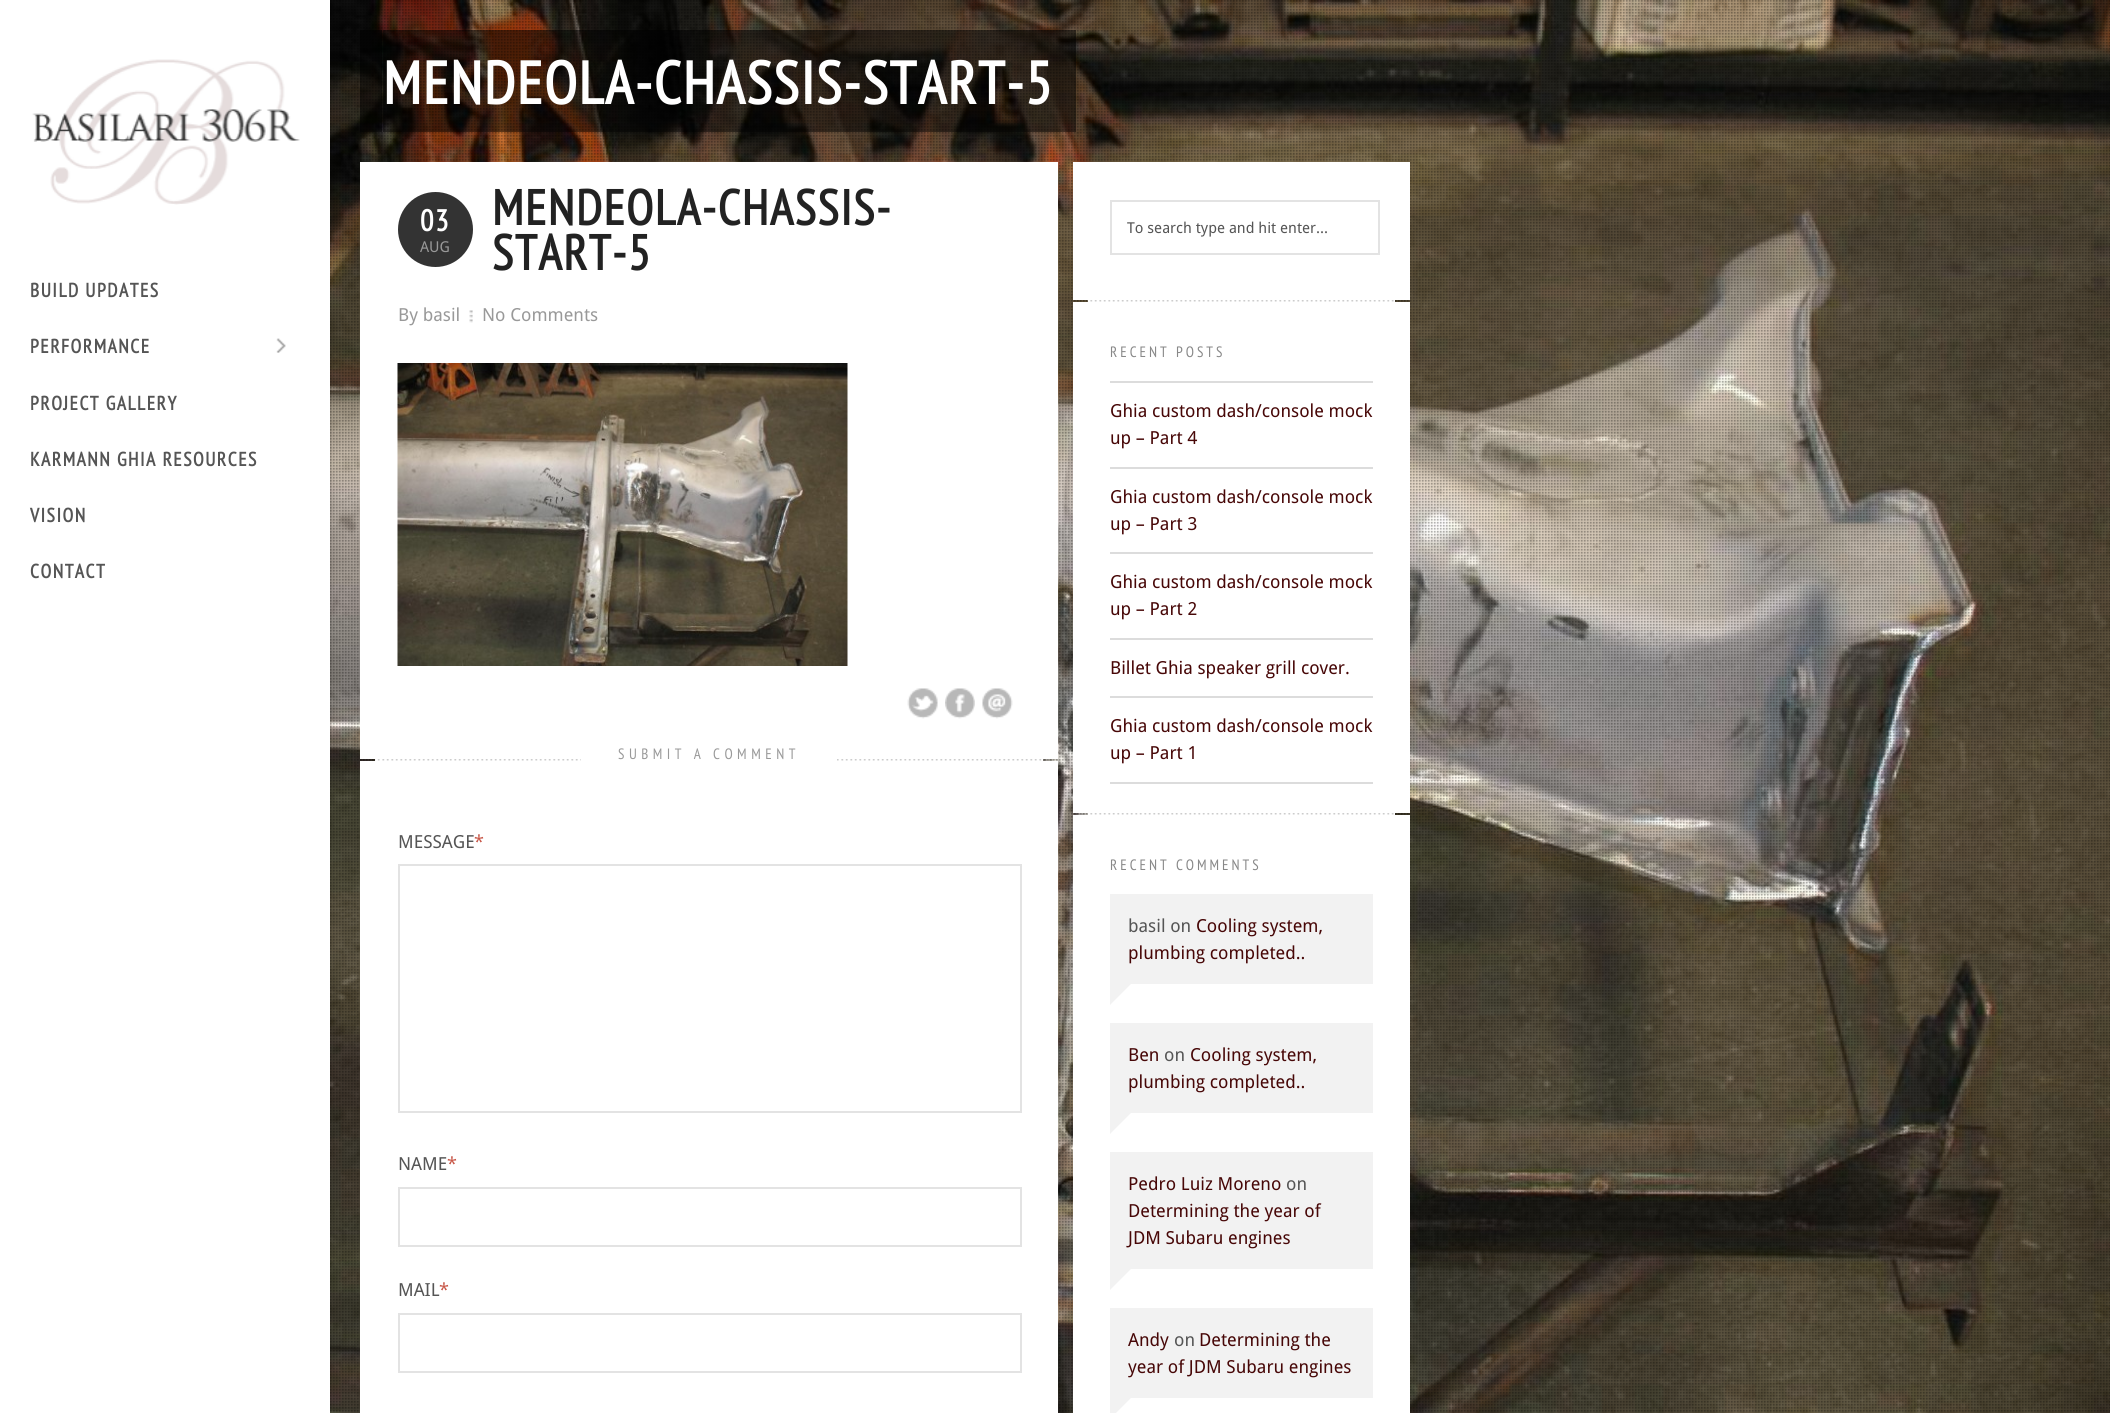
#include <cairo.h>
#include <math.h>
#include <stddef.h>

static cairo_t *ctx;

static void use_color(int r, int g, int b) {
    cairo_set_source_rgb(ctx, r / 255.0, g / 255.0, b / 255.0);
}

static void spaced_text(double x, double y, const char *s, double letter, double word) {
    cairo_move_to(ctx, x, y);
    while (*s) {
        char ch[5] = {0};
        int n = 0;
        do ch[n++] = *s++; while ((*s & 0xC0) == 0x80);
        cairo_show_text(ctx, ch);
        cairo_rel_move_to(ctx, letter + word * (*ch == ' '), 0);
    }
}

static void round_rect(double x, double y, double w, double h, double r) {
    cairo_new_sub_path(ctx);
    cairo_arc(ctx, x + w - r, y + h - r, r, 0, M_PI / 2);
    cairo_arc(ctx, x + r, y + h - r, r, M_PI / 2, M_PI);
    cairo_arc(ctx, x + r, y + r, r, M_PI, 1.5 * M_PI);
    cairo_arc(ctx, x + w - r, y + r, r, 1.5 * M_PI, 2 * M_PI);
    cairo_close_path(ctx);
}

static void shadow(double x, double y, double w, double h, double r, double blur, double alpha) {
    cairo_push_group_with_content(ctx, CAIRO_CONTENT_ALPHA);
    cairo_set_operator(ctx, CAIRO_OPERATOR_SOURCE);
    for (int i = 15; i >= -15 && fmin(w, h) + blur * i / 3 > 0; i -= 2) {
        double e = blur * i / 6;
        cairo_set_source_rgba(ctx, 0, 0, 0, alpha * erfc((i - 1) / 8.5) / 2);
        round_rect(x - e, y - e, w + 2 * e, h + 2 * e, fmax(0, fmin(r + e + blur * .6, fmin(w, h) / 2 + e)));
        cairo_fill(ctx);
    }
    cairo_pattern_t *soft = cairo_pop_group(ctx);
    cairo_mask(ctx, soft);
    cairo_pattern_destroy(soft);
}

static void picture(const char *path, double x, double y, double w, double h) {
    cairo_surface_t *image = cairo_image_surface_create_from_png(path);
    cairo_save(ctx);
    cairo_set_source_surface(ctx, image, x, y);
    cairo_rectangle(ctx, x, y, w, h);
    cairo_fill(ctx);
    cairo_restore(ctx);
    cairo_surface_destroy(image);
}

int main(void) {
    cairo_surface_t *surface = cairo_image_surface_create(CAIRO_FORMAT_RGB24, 2110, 1413);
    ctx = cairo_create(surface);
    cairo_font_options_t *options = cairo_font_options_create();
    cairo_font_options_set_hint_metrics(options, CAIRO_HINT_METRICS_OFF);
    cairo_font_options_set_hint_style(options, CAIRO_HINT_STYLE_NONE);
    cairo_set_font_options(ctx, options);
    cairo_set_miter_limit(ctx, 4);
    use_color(255, 255, 255);
    cairo_paint(ctx);
    picture("img3.png", 330, 0, 1780, 1413);
    picture("img4.png", 330, 0, 1780, 1413);
    use_color(0, 0, 0);
    shadow(0, 0, 330, 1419, 0, 2, 0.25);
    use_color(255, 255, 255);
    cairo_rectangle(ctx, 0, 0, 330, 1413);
    cairo_fill(ctx);
    picture("img1.png", 32, 59, 268, 146);
    cairo_select_font_face(ctx, "PT Sans Narrow", CAIRO_FONT_SLANT_NORMAL, CAIRO_FONT_WEIGHT_BOLD);
    cairo_set_font_size(ctx, 19.5);
    use_color(85, 85, 85);
    spaced_text(30, 297, "BUILD UPDATES", 1.5, 0);
    spaced_text(30, 353, "PERFORMANCE", 1.5, 0);
    picture("img2.png", 276, 338, 10, 15);
    spaced_text(30, 410, "PROJECT GALLERY", 1.5, 0);
    spaced_text(30, 466, "KARMANN GHIA RESOURCES", 1.5, 0);
    spaced_text(30, 522, "VISION", 1.5, 0);
    spaced_text(30, 578, "CONTACT", 1.5, 0);
    cairo_set_source_rgba(ctx, 0, 0, 0, 0.5);
    cairo_rectangle(ctx, 383, 30, 670, 102);
    cairo_fill(ctx);
    cairo_set_font_size(ctx, 60);
    use_color(255, 255, 255);
    spaced_text(383, 104, "MENDEOLA-CHASSIS-START-5", 1.5, 0);
    cairo_set_source_rgba(ctx, 0, 0, 0, 0.5);
    cairo_rectangle(ctx, 360, 30, 22, 102);
    cairo_fill(ctx);
    cairo_rectangle(ctx, 1053, 30, 23, 102);
    cairo_fill(ctx);
    use_color(255, 255, 255);
    cairo_rectangle(ctx, 360, 162, 698, 597);
    cairo_fill(ctx);
    use_color(51, 51, 51);
    cairo_arc(ctx, 435.5, 229.5, 37.5, 0, 2 * M_PI);
    cairo_fill(ctx);
    cairo_set_font_size(ctx, 30);
    use_color(255, 255, 255);
    spaced_text(420, 231, "03", 1.5, 0);
    cairo_select_font_face(ctx, "Droid Sans", CAIRO_FONT_SLANT_NORMAL, CAIRO_FONT_WEIGHT_NORMAL);
    cairo_set_font_size(ctx, 15);
    use_color(153, 153, 153);
    cairo_move_to(ctx, 420, 252);
    cairo_show_text(ctx, "AUG");
    cairo_select_font_face(ctx, "PT Sans Narrow", CAIRO_FONT_SLANT_NORMAL, CAIRO_FONT_WEIGHT_BOLD);
    cairo_set_font_size(ctx, 49.5);
    use_color(34, 34, 34);
    spaced_text(492, 225, "MENDEOLA-CHASSIS-", 1.5, 0);
    spaced_text(492, 270, "START-5", 1.5, 0);
    cairo_select_font_face(ctx, "Droid Sans", CAIRO_FONT_SLANT_NORMAL, CAIRO_FONT_WEIGHT_NORMAL);
    cairo_set_font_size(ctx, 18);
    use_color(153, 153, 153);
    cairo_move_to(ctx, 398, 321);
    cairo_show_text(ctx, "By basil");
    picture("img5.png", 469, 310, 4, 13);
    cairo_move_to(ctx, 482, 321);
    cairo_show_text(ctx, "No Comments");
    picture("img6.png", 397, 363, 451, 303);
    picture("img7.png", 907, 688, 31, 31);
    picture("img8.png", 945, 688, 30, 31);
    picture("img9.png", 982, 688, 31, 31);
    use_color(255, 255, 255);
    cairo_rectangle(ctx, 375, 759, 668, 2);
    cairo_fill(ctx);
    picture("img10.png", 375, 759, 667, 2);
    cairo_rectangle(ctx, 581, 759, 256, 2);
    cairo_fill(ctx);
    cairo_select_font_face(ctx, "PT Sans Narrow", CAIRO_FONT_SLANT_NORMAL, CAIRO_FONT_WEIGHT_NORMAL);
    cairo_set_font_size(ctx, 15);
    use_color(153, 153, 153);
    spaced_text(618, 759, "SUBMIT A COMMENT", 4.5, 0);
    use_color(255, 255, 255);
    cairo_rectangle(ctx, 360, 761, 698, 652);
    cairo_fill(ctx);
    cairo_select_font_face(ctx, "Droid Sans", CAIRO_FONT_SLANT_NORMAL, CAIRO_FONT_WEIGHT_NORMAL);
    cairo_set_font_size(ctx, 18);
    use_color(85, 85, 85);
    cairo_move_to(ctx, 398, 848);
    cairo_show_text(ctx, "MESSAGE");
    use_color(200, 88, 73);
    cairo_move_to(ctx, 474, 848);
    cairo_show_text(ctx, "*");
    cairo_rectangle(ctx, 399, 865, 622, 247);
    use_color(227, 227, 227);
    cairo_stroke(ctx);
    use_color(85, 85, 85);
    cairo_move_to(ctx, 398, 1170);
    cairo_show_text(ctx, "NAME");
    use_color(200, 88, 73);
    cairo_move_to(ctx, 447, 1170);
    cairo_show_text(ctx, "*");
    cairo_rectangle(ctx, 399, 1188, 622, 58);
    use_color(227, 227, 227);
    cairo_stroke(ctx);
    use_color(85, 85, 85);
    cairo_move_to(ctx, 398, 1296);
    cairo_show_text(ctx, "MAIL");
    use_color(200, 88, 73);
    cairo_move_to(ctx, 439, 1296);
    cairo_show_text(ctx, "*");
    cairo_rectangle(ctx, 399, 1314, 622, 58);
    use_color(227, 227, 227);
    cairo_stroke(ctx);
    use_color(255, 255, 255);
    cairo_rectangle(ctx, 1073, 162, 337, 138);
    cairo_fill(ctx);
    cairo_rectangle(ctx, 1111, 201, 268, 53);
    use_color(227, 227, 227);
    cairo_stroke(ctx);
    cairo_set_font_size(ctx, 15);
    use_color(85, 85, 85);
    cairo_move_to(ctx, 1127, 233);
    cairo_show_text(ctx, "To search type and hit enter...");
    use_color(255, 255, 255);
    cairo_rectangle(ctx, 1088, 300, 307, 2);
    cairo_fill(ctx);
    picture("img11.png", 1087, 300, 307, 2);
    cairo_rectangle(ctx, 1073, 302, 337, 511);
    cairo_fill(ctx);
    cairo_select_font_face(ctx, "PT Sans Narrow", CAIRO_FONT_SLANT_NORMAL, CAIRO_FONT_WEIGHT_NORMAL);
    use_color(136, 136, 136);
    spaced_text(1110, 357, "RECENT POSTS", 3, 0);
    use_color(220, 220, 220);
    cairo_rectangle(ctx, 1110, 381, 263, 2);
    cairo_fill(ctx);
    cairo_rectangle(ctx, 1110, 467, 263, 2);
    cairo_fill(ctx);
    cairo_select_font_face(ctx, "Droid Sans", CAIRO_FONT_SLANT_NORMAL, CAIRO_FONT_WEIGHT_NORMAL);
    cairo_set_font_size(ctx, 18);
    use_color(71, 7, 7);
    cairo_move_to(ctx, 1110, 417);
    cairo_show_text(ctx, "Ghia custom dash/console mock");
    cairo_move_to(ctx, 1110, 444);
    cairo_show_text(ctx, "up – Part 4");
    use_color(220, 220, 220);
    cairo_rectangle(ctx, 1110, 552, 263, 2);
    cairo_fill(ctx);
    use_color(71, 7, 7);
    cairo_move_to(ctx, 1110, 503);
    cairo_show_text(ctx, "Ghia custom dash/console mock");
    cairo_move_to(ctx, 1110, 530);
    cairo_show_text(ctx, "up – Part 3");
    use_color(220, 220, 220);
    cairo_rectangle(ctx, 1110, 638, 263, 2);
    cairo_fill(ctx);
    use_color(71, 7, 7);
    cairo_move_to(ctx, 1110, 588);
    cairo_show_text(ctx, "Ghia custom dash/console mock");
    cairo_move_to(ctx, 1110, 615);
    cairo_show_text(ctx, "up – Part 2");
    use_color(220, 220, 220);
    cairo_rectangle(ctx, 1110, 696, 263, 2);
    cairo_fill(ctx);
    use_color(71, 7, 7);
    cairo_move_to(ctx, 1110, 674);
    cairo_show_text(ctx, "Billet Ghia speaker grill cover.");
    use_color(220, 220, 220);
    cairo_rectangle(ctx, 1110, 782, 263, 2);
    cairo_fill(ctx);
    use_color(71, 7, 7);
    cairo_move_to(ctx, 1110, 732);
    cairo_show_text(ctx, "Ghia custom dash/console mock");
    cairo_move_to(ctx, 1110, 759);
    cairo_show_text(ctx, "up – Part 1");
    use_color(255, 255, 255);
    cairo_rectangle(ctx, 1088, 813, 307, 2);
    cairo_fill(ctx);
    picture("img12.png", 1087, 813, 307, 2);
    cairo_rectangle(ctx, 1073, 815, 337, 598);
    cairo_fill(ctx);
    cairo_select_font_face(ctx, "PT Sans Narrow", CAIRO_FONT_SLANT_NORMAL, CAIRO_FONT_WEIGHT_NORMAL);
    cairo_set_font_size(ctx, 15);
    use_color(136, 136, 136);
    spaced_text(1110, 870, "RECENT COMMENTS", 3, 0);
    use_color(242, 242, 242);
    cairo_rectangle(ctx, 1110, 894, 263, 90);
    cairo_fill(ctx);
    cairo_select_font_face(ctx, "Droid Sans", CAIRO_FONT_SLANT_NORMAL, CAIRO_FONT_WEIGHT_NORMAL);
    cairo_set_font_size(ctx, 18);
    use_color(85, 85, 85);
    cairo_move_to(ctx, 1128, 932);
    cairo_show_text(ctx, "basil on");
    use_color(71, 7, 7);
    cairo_move_to(ctx, 1196, 932);
    cairo_show_text(ctx, "Cooling system,");
    cairo_move_to(ctx, 1128, 959);
    cairo_show_text(ctx, "plumbing completed..");
    use_color(242, 242, 242);
    cairo_new_path(ctx);
    cairo_move_to(ctx, 1110, 1005);
    cairo_line_to(ctx, 1110, 984);
    cairo_line_to(ctx, 1131, 984);
    cairo_close_path(ctx);
    cairo_fill(ctx);
    cairo_rectangle(ctx, 1110, 1023, 263, 90);
    cairo_fill(ctx);
    use_color(71, 7, 7);
    cairo_move_to(ctx, 1128, 1061);
    cairo_show_text(ctx, "Ben");
    use_color(85, 85, 85);
    cairo_move_to(ctx, 1164, 1061);
    cairo_show_text(ctx, "on");
    use_color(71, 7, 7);
    cairo_move_to(ctx, 1190, 1061);
    cairo_show_text(ctx, "Cooling system,");
    cairo_move_to(ctx, 1128, 1088);
    cairo_show_text(ctx, "plumbing completed..");
    use_color(242, 242, 242);
    cairo_new_path(ctx);
    cairo_move_to(ctx, 1110, 1134);
    cairo_line_to(ctx, 1110, 1113);
    cairo_line_to(ctx, 1131, 1113);
    cairo_close_path(ctx);
    cairo_fill(ctx);
    cairo_rectangle(ctx, 1110, 1152, 263, 117);
    cairo_fill(ctx);
    use_color(71, 7, 7);
    cairo_move_to(ctx, 1128, 1190);
    cairo_show_text(ctx, "Pedro Luiz Moreno");
    use_color(85, 85, 85);
    cairo_move_to(ctx, 1286, 1190);
    cairo_show_text(ctx, "on");
    use_color(71, 7, 7);
    cairo_move_to(ctx, 1128, 1217);
    cairo_show_text(ctx, "Determining the year of");
    cairo_move_to(ctx, 1128, 1244);
    cairo_show_text(ctx, "JDM Subaru engines");
    use_color(242, 242, 242);
    cairo_new_path(ctx);
    cairo_move_to(ctx, 1110, 1290);
    cairo_line_to(ctx, 1110, 1269);
    cairo_line_to(ctx, 1131, 1269);
    cairo_close_path(ctx);
    cairo_fill(ctx);
    cairo_rectangle(ctx, 1110, 1308, 263, 90);
    cairo_fill(ctx);
    use_color(71, 7, 7);
    cairo_move_to(ctx, 1128, 1346);
    cairo_show_text(ctx, "Andy");
    use_color(85, 85, 85);
    cairo_move_to(ctx, 1174, 1346);
    cairo_show_text(ctx, "on");
    use_color(71, 7, 7);
    cairo_move_to(ctx, 1199, 1346);
    cairo_show_text(ctx, "Determining the");
    cairo_move_to(ctx, 1128, 1373);
    cairo_show_text(ctx, "year of JDM Subaru engines");
    use_color(242, 242, 242);
    cairo_new_path(ctx);
    cairo_move_to(ctx, 1110, 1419);
    cairo_line_to(ctx, 1110, 1398);
    cairo_line_to(ctx, 1131, 1398);
    cairo_close_path(ctx);
    cairo_fill(ctx);
    cairo_surface_write_to_png(surface, "result.png");
    cairo_font_options_destroy(options);
    cairo_destroy(ctx);
    cairo_surface_destroy(surface);
    return 0;
}
